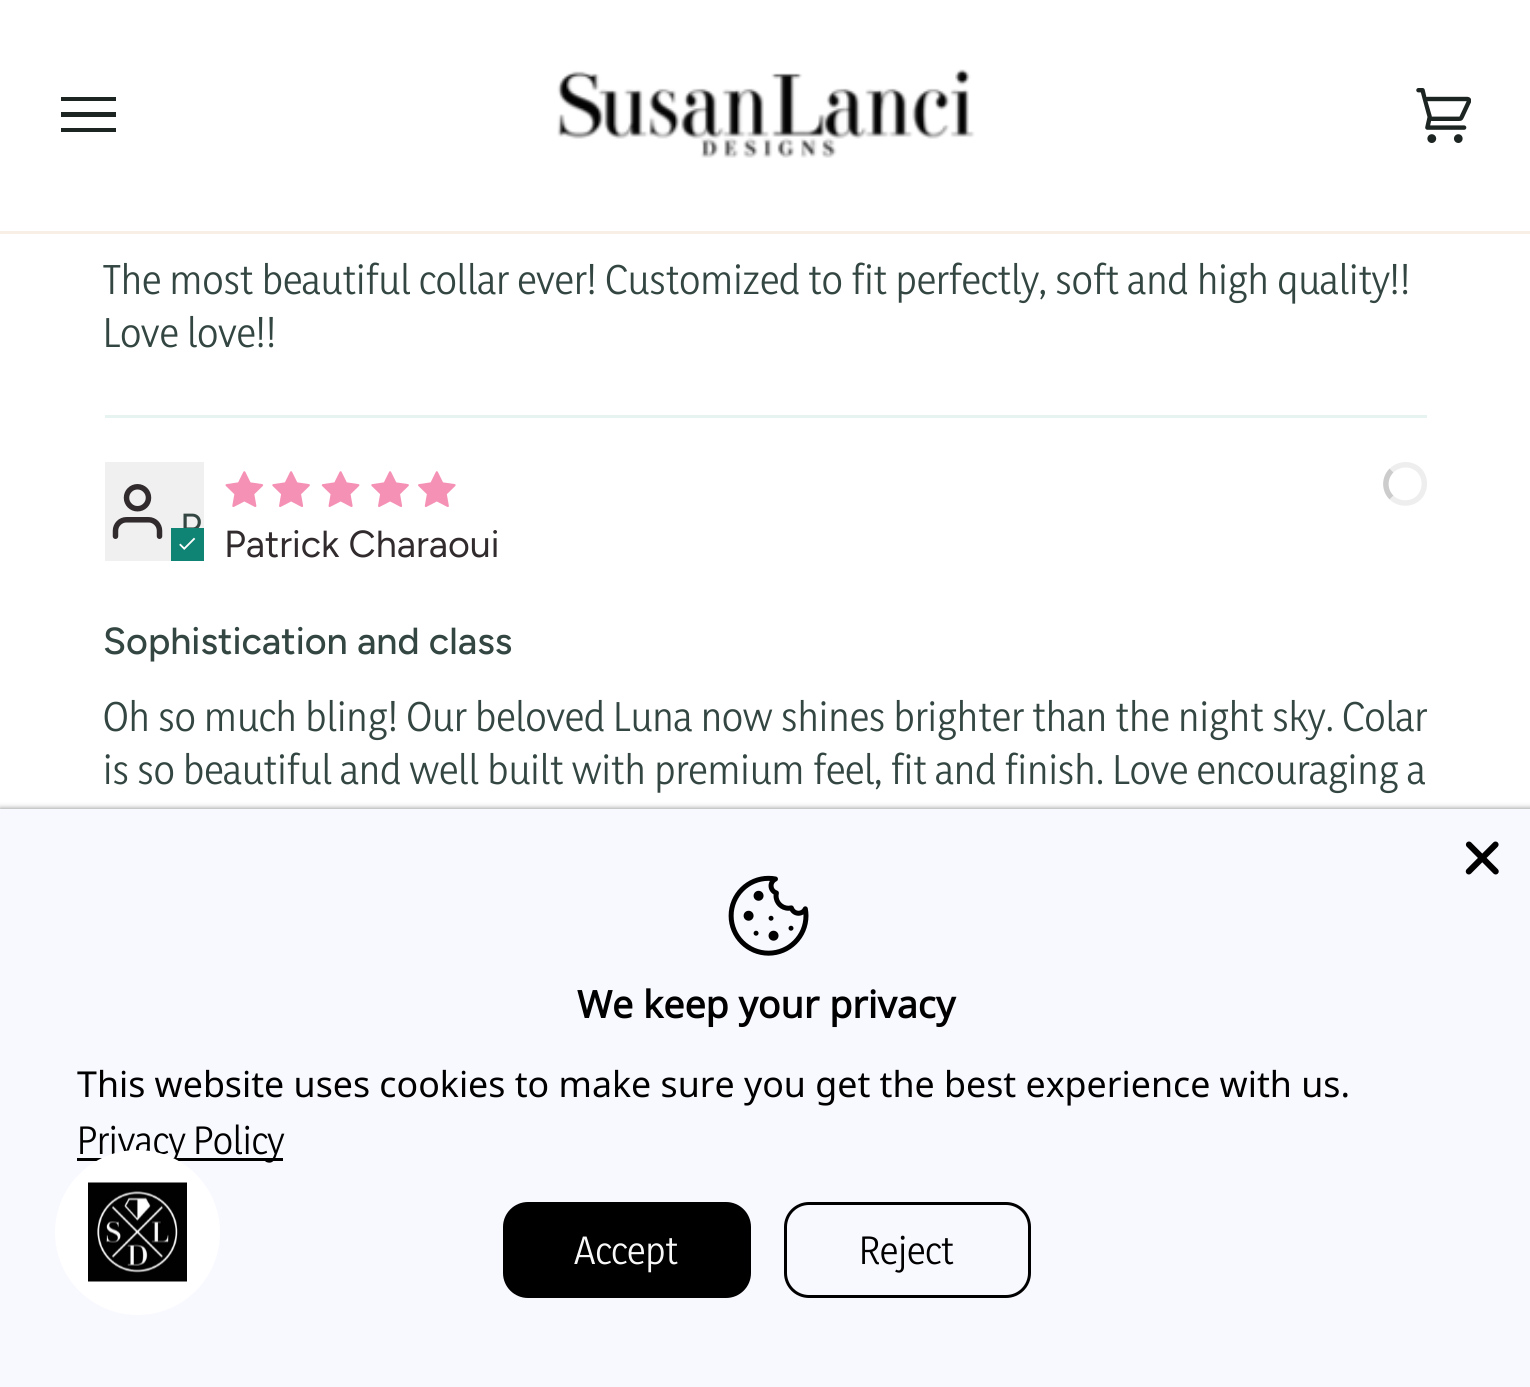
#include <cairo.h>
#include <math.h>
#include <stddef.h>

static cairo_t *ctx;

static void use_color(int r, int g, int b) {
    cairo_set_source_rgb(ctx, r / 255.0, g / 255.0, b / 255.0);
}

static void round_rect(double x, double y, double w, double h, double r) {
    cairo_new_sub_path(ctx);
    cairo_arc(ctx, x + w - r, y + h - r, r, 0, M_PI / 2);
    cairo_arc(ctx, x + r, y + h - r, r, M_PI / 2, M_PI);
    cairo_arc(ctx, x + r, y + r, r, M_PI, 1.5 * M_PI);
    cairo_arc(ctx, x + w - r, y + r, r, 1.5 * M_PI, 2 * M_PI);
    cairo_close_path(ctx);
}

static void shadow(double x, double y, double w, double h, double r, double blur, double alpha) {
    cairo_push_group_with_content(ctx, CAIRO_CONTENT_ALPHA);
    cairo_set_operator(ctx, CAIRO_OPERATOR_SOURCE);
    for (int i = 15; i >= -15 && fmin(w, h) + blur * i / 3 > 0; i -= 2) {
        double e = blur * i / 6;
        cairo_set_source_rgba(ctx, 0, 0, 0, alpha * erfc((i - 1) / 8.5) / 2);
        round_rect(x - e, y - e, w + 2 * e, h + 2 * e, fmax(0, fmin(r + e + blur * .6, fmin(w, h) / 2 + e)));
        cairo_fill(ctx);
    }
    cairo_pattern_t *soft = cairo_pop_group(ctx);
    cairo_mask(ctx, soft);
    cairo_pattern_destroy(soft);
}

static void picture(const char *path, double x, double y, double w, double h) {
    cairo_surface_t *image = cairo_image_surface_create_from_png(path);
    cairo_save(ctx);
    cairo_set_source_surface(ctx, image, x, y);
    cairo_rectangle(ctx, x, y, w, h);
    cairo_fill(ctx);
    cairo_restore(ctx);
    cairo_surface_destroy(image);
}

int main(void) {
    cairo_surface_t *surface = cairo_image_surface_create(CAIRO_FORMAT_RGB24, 1530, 1387);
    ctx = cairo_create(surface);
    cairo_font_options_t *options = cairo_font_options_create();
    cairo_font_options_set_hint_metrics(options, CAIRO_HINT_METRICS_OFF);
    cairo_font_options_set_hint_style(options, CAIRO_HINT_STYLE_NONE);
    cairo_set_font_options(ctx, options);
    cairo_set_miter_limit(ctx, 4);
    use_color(255, 255, 255);
    cairo_paint(ctx);
    use_color(248, 240, 231);
    cairo_rectangle(ctx, 0, 231, 1530, 3);
    cairo_fill(ctx);
    cairo_save(ctx);
    cairo_rectangle(ctx, 61, 74, 55, 83);
    cairo_clip(ctx);
    use_color(29, 37, 35);
    cairo_new_path(ctx);
    cairo_move_to(ctx, 60, 97);
    cairo_line_to(ctx, 116, 97);
    cairo_line_to(ctx, 116, 101);
    cairo_line_to(ctx, 60, 101);
    cairo_close_path(ctx);
    cairo_move_to(ctx, 60, 112);
    cairo_line_to(ctx, 116, 112);
    cairo_line_to(ctx, 116, 117);
    cairo_line_to(ctx, 60, 117);
    cairo_close_path(ctx);
    cairo_move_to(ctx, 60, 128);
    cairo_line_to(ctx, 116, 128);
    cairo_line_to(ctx, 116, 132);
    cairo_line_to(ctx, 60, 132);
    cairo_close_path(ctx);
    cairo_fill(ctx);
    cairo_restore(ctx);
    picture("img1.png", 557, 69, 418, 89);
    picture("img2.png", 1416, 88, 55, 55);
    cairo_select_font_face(ctx, "Yaldevi", CAIRO_FONT_SLANT_NORMAL, CAIRO_FONT_WEIGHT_NORMAL);
    cairo_set_font_size(ctx, 37.65);
    use_color(51, 70, 65);
    cairo_move_to(ctx, 103, 294);
    cairo_show_text(ctx, "The most beautiful collar ever! Customized to fit perfectly, soft and high quality!!");
    cairo_move_to(ctx, 103, 347);
    cairo_show_text(ctx, "Love love!!");
    use_color(231, 243, 241);
    cairo_rectangle(ctx, 105, 415, 1322, 3);
    cairo_fill(ctx);
    picture("img3.png", 225, 471, 39, 36);
    picture("img4.png", 272, 471, 38, 36);
    picture("img5.png", 321, 471, 39, 36);
    picture("img4.png", 371, 471, 38, 36);
    picture("img6.png", 418, 471, 38, 36);
    cairo_new_path(ctx);
    cairo_move_to(ctx, 1391.5, 470.5);
    cairo_curve_to(ctx, 1396, 466, 1403, 464, 1409, 465);
    cairo_curve_to(ctx, 1431.5, 469.5, 1428.5, 503, 1405, 503);
    cairo_curve_to(ctx, 1400, 503, 1395, 501, 1391.5, 497.5);
    use_color(238, 238, 238);
    cairo_set_line_width(ctx, 5.5);
    cairo_stroke(ctx);
    cairo_new_path(ctx);
    cairo_move_to(ctx, 1391.5, 497.5);
    cairo_curve_to(ctx, 1384, 490, 1384, 478, 1391.5, 470.5);
    use_color(204, 204, 204);
    cairo_stroke(ctx);
    use_color(240, 240, 240);
    cairo_rectangle(ctx, 105, 462, 99, 99);
    cairo_fill(ctx);
    picture("img7.png", 112, 484, 51, 55);
    cairo_select_font_face(ctx, "Figtree", CAIRO_FONT_SLANT_NORMAL, CAIRO_FONT_WEIGHT_NORMAL);
    use_color(51, 70, 65);
    cairo_move_to(ctx, 180, 540);
    cairo_show_text(ctx, "P");
    use_color(16, 132, 116);
    cairo_rectangle(ctx, 171, 528, 33, 33);
    cairo_fill(ctx);
    picture("img8.png", 179, 537, 17, 13);
    use_color(49, 43, 46);
    cairo_move_to(ctx, 224, 557);
    cairo_show_text(ctx, "Patrick Charaoui");
    cairo_select_font_face(ctx, "Figtree Medium", CAIRO_FONT_SLANT_NORMAL, CAIRO_FONT_WEIGHT_NORMAL);
    use_color(51, 70, 65);
    cairo_move_to(ctx, 103, 654);
    cairo_show_text(ctx, "Sophistication and class");
    cairo_select_font_face(ctx, "Yaldevi", CAIRO_FONT_SLANT_NORMAL, CAIRO_FONT_WEIGHT_NORMAL);
    cairo_move_to(ctx, 103, 731);
    cairo_show_text(ctx, "Oh so much bling! Our beloved Luna now shines brighter than the night sky. Colar");
    cairo_move_to(ctx, 103, 784);
    cairo_show_text(ctx, "is so beautiful and well built with premium feel, fit and finish. Love encouraging a");
    use_color(0, 0, 0);
    shadow(0, 809, 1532, 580, 0, 3, 0.5);
    use_color(248, 248, 255);
    cairo_rectangle(ctx, 0, 809, 1530, 578);
    cairo_fill(ctx);
    picture("img9.png", 1465, 841, 34, 34);
    picture("img10.png", 728, 875, 81, 81);
    cairo_select_font_face(ctx, "Noto Sans", CAIRO_FONT_SLANT_NORMAL, CAIRO_FONT_WEIGHT_BOLD);
    use_color(0, 0, 0);
    cairo_move_to(ctx, 577, 1018);
    cairo_show_text(ctx, "We keep your privacy");
    cairo_select_font_face(ctx, "Noto Sans", CAIRO_FONT_SLANT_NORMAL, CAIRO_FONT_WEIGHT_NORMAL);
    cairo_set_font_size(ctx, 35.75);
    cairo_move_to(ctx, 77, 1097);
    cairo_show_text(ctx, "This website uses cookies to make sure you get the best experience with us.");
    cairo_rectangle(ctx, 77, 1158, 206, 3);
    cairo_fill(ctx);
    cairo_select_font_face(ctx, "Yaldevi", CAIRO_FONT_SLANT_NORMAL, CAIRO_FONT_WEIGHT_NORMAL);
    cairo_move_to(ctx, 77, 1154);
    cairo_show_text(ctx, "Privacy Policy");
    round_rect(503, 1202, 248, 96, 25);
    cairo_fill(ctx);
    use_color(248, 248, 248);
    cairo_move_to(ctx, 574, 1264);
    cairo_show_text(ctx, "Accept");
    round_rect(785.5, 1203.5, 244, 93, 23.5);
    use_color(0, 0, 0);
    cairo_set_line_width(ctx, 3);
    cairo_stroke(ctx);
    cairo_move_to(ctx, 859, 1264);
    cairo_show_text(ctx, "Reject");
    use_color(255, 255, 255);
    cairo_new_path(ctx);
    cairo_arc(ctx, 137.5, 1232.5, 82.5, 0, 2 * M_PI);
    cairo_fill(ctx);
    picture("img11.png", 88, 1182, 99, 100);
    cairo_surface_write_to_png(surface, "result.png");
    cairo_font_options_destroy(options);
    cairo_destroy(ctx);
    cairo_surface_destroy(surface);
    return 0;
}
